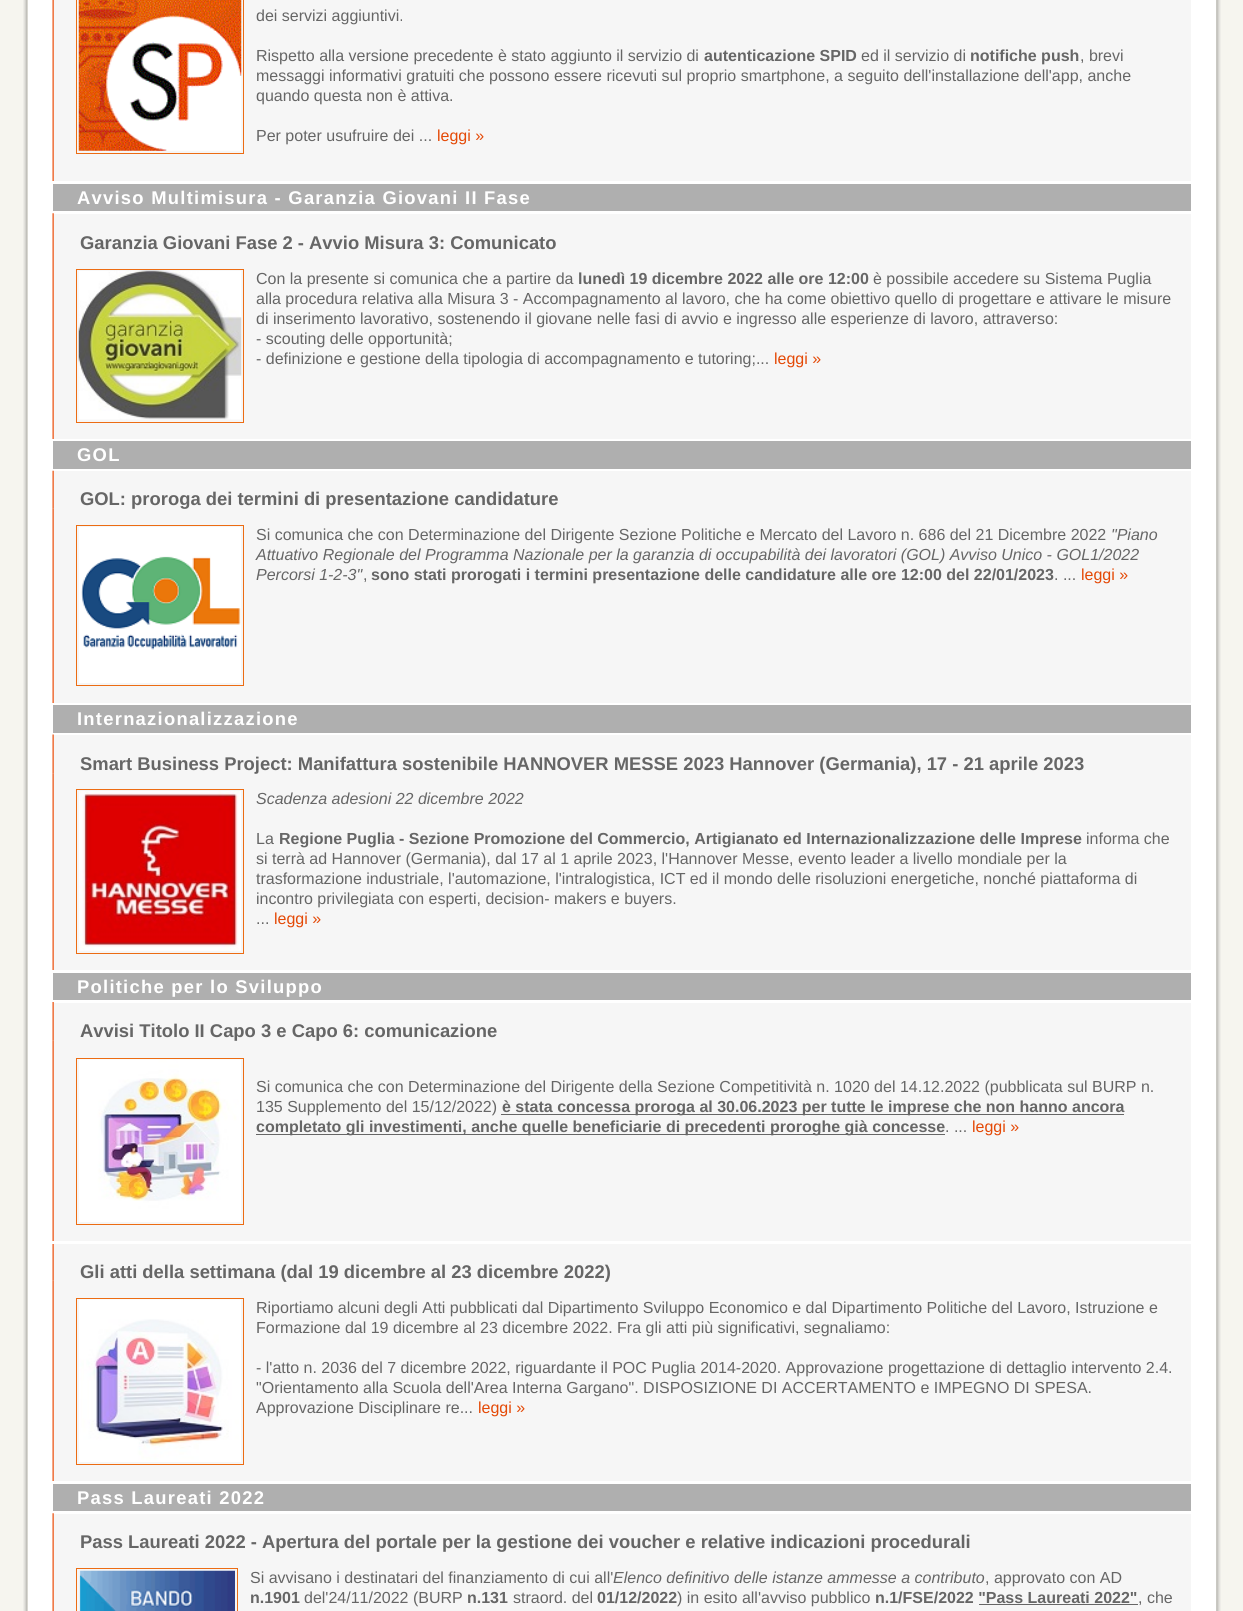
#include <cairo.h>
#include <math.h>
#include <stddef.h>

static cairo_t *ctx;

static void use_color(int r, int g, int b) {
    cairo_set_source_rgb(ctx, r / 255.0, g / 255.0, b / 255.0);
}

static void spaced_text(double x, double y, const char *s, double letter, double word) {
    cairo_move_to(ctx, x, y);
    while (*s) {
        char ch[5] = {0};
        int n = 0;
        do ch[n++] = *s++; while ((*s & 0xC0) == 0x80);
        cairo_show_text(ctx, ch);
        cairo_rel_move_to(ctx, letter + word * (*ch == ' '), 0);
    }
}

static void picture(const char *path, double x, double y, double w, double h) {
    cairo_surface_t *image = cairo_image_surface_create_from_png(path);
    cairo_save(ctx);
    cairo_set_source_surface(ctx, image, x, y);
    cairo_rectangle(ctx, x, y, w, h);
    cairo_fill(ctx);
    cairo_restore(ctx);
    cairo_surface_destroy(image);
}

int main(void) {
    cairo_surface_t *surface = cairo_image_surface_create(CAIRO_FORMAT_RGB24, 1243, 1611);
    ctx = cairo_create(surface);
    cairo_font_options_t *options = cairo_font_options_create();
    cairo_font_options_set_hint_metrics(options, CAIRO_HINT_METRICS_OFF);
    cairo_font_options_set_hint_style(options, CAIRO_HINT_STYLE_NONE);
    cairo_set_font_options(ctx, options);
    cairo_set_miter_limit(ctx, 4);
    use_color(246, 245, 239);
    cairo_paint(ctx);
    picture("img1.png", 23, 0, 5, 1611);
    picture("img2.png", 1216, 0, 5, 1611);
    use_color(255, 255, 255);
    cairo_rectangle(ctx, 28, 0, 1188, 1611);
    cairo_fill(ctx);
    use_color(246, 246, 246);
    cairo_rectangle(ctx, 53, 0, 1138, 181);
    cairo_fill(ctx);
    picture("img3.png", 52, 0, 2, 181);
    cairo_rectangle(ctx, 76.5, -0.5, 167, 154);
    use_color(236, 108, 19);
    cairo_set_line_width(ctx, 1);
    cairo_stroke(ctx);
    picture("img4.png", 78, 0, 164, 151);
    cairo_select_font_face(ctx, "Liberation Sans", CAIRO_FONT_SLANT_NORMAL, CAIRO_FONT_WEIGHT_NORMAL);
    cairo_set_font_size(ctx, 16);
    use_color(102, 102, 102);
    cairo_move_to(ctx, 256, 21);
    cairo_show_text(ctx, "dei servizi aggiuntivi.");
    cairo_move_to(ctx, 256, 61);
    cairo_show_text(ctx, "Rispetto alla versione precedente è stato aggiunto il servizio di");
    cairo_select_font_face(ctx, "Liberation Sans", CAIRO_FONT_SLANT_NORMAL, CAIRO_FONT_WEIGHT_BOLD);
    cairo_move_to(ctx, 704, 61);
    cairo_show_text(ctx, "autenticazione SPID");
    cairo_select_font_face(ctx, "Liberation Sans", CAIRO_FONT_SLANT_NORMAL, CAIRO_FONT_WEIGHT_NORMAL);
    cairo_move_to(ctx, 861, 61);
    cairo_show_text(ctx, "ed il servizio di");
    cairo_select_font_face(ctx, "Liberation Sans", CAIRO_FONT_SLANT_NORMAL, CAIRO_FONT_WEIGHT_BOLD);
    cairo_move_to(ctx, 970, 61);
    cairo_show_text(ctx, "notifiche push");
    cairo_select_font_face(ctx, "Liberation Sans", CAIRO_FONT_SLANT_NORMAL, CAIRO_FONT_WEIGHT_NORMAL);
    cairo_move_to(ctx, 1080, 61);
    cairo_show_text(ctx, ", brevi");
    cairo_move_to(ctx, 256, 81);
    cairo_show_text(ctx, "messaggi informativi gratuiti che possono essere ricevuti sul proprio smartphone, a seguito dell'installazione dell'app, anche");
    cairo_move_to(ctx, 256, 101);
    cairo_show_text(ctx, "quando questa non è attiva.");
    cairo_move_to(ctx, 256, 141);
    cairo_show_text(ctx, "Per poter usufruire dei ...");
    use_color(228, 73, 6);
    cairo_move_to(ctx, 437, 141);
    cairo_show_text(ctx, "leggi »");
    use_color(175, 175, 175);
    cairo_rectangle(ctx, 53, 184, 1138, 27);
    cairo_fill(ctx);
    cairo_select_font_face(ctx, "Liberation Sans", CAIRO_FONT_SLANT_NORMAL, CAIRO_FONT_WEIGHT_BOLD);
    cairo_set_font_size(ctx, 18.4);
    use_color(255, 255, 255);
    spaced_text(77, 204, "Avviso Multimisura - Garanzia Giovani II Fase", 1.25, 0);
    use_color(246, 246, 246);
    cairo_rectangle(ctx, 53, 214, 1138, 225);
    cairo_fill(ctx);
    picture("img5.png", 52, 213, 2, 39);
    use_color(102, 102, 102);
    cairo_move_to(ctx, 80, 249);
    cairo_show_text(ctx, "Garanzia Giovani Fase 2 - Avvio Misura 3: Comunicato");
    picture("img6.png", 52, 252, 2, 187);
    cairo_rectangle(ctx, 76.5, 269.5, 167, 153);
    use_color(236, 108, 19);
    cairo_stroke(ctx);
    picture("img7.png", 78, 270, 164, 150);
    cairo_select_font_face(ctx, "Liberation Sans", CAIRO_FONT_SLANT_NORMAL, CAIRO_FONT_WEIGHT_NORMAL);
    cairo_set_font_size(ctx, 16);
    use_color(102, 102, 102);
    cairo_move_to(ctx, 256, 284);
    cairo_show_text(ctx, "Con la presente si comunica che a partire da");
    cairo_select_font_face(ctx, "Liberation Sans", CAIRO_FONT_SLANT_NORMAL, CAIRO_FONT_WEIGHT_BOLD);
    cairo_move_to(ctx, 578, 284);
    cairo_show_text(ctx, "lunedì 19 dicembre 2022 alle ore 12:00");
    cairo_select_font_face(ctx, "Liberation Sans", CAIRO_FONT_SLANT_NORMAL, CAIRO_FONT_WEIGHT_NORMAL);
    cairo_move_to(ctx, 873, 284);
    cairo_show_text(ctx, "è possibile accedere su Sistema Puglia");
    cairo_move_to(ctx, 256, 304);
    cairo_show_text(ctx, "alla procedura relativa alla Misura 3 - Accompagnamento al lavoro, che ha come obiettivo quello di progettare e attivare le misure");
    cairo_move_to(ctx, 256, 324);
    cairo_show_text(ctx, "di inserimento lavorativo, sostenendo il giovane nelle fasi di avvio e ingresso alle esperienze di lavoro, attraverso:");
    cairo_move_to(ctx, 256, 344);
    cairo_show_text(ctx, "- scouting delle opportunità;");
    cairo_move_to(ctx, 256, 364);
    cairo_show_text(ctx, "- definizione e gestione della tipologia di accompagnamento e tutoring;...");
    use_color(228, 73, 6);
    cairo_move_to(ctx, 774, 364);
    cairo_show_text(ctx, "leggi »");
    use_color(175, 175, 175);
    cairo_rectangle(ctx, 53, 441, 1138, 28);
    cairo_fill(ctx);
    cairo_select_font_face(ctx, "Liberation Sans", CAIRO_FONT_SLANT_NORMAL, CAIRO_FONT_WEIGHT_BOLD);
    cairo_set_font_size(ctx, 18.4);
    use_color(255, 255, 255);
    spaced_text(77, 461, "GOL", 1.25, 0);
    use_color(246, 246, 246);
    cairo_rectangle(ctx, 53, 471, 1138, 232);
    cairo_fill(ctx);
    picture("img8.png", 52, 470, 2, 39);
    use_color(102, 102, 102);
    cairo_move_to(ctx, 80, 505);
    cairo_show_text(ctx, "GOL: proroga dei termini di presentazione candidature");
    picture("img9.png", 52, 508, 2, 195);
    cairo_rectangle(ctx, 76.5, 525.5, 167, 160);
    use_color(236, 108, 19);
    cairo_stroke(ctx);
    picture("img10.png", 79, 527, 162, 156);
    cairo_select_font_face(ctx, "Liberation Sans", CAIRO_FONT_SLANT_NORMAL, CAIRO_FONT_WEIGHT_NORMAL);
    cairo_set_font_size(ctx, 16);
    use_color(102, 102, 102);
    cairo_move_to(ctx, 256, 540);
    cairo_show_text(ctx, "Si comunica che con Determinazione del Dirigente Sezione Politiche e Mercato del Lavoro n. 686 del 21 Dicembre 2022");
    cairo_select_font_face(ctx, "Liberation Sans", CAIRO_FONT_SLANT_ITALIC, CAIRO_FONT_WEIGHT_NORMAL);
    cairo_move_to(ctx, 1111, 540);
    cairo_show_text(ctx, "\"Piano");
    cairo_move_to(ctx, 256, 560);
    cairo_show_text(ctx, "Attuativo Regionale del Programma Nazionale per la garanzia di occupabilità dei lavoratori (GOL) Avviso Unico - GOL1/2022");
    cairo_move_to(ctx, 256, 580);
    cairo_show_text(ctx, "Percorsi 1-2-3\"");
    cairo_select_font_face(ctx, "Liberation Sans", CAIRO_FONT_SLANT_NORMAL, CAIRO_FONT_WEIGHT_NORMAL);
    cairo_move_to(ctx, 363, 580);
    cairo_show_text(ctx, ",");
    cairo_select_font_face(ctx, "Liberation Sans", CAIRO_FONT_SLANT_NORMAL, CAIRO_FONT_WEIGHT_BOLD);
    cairo_move_to(ctx, 371, 580);
    cairo_show_text(ctx, "sono stati prorogati i termini presentazione delle candidature alle ore 12:00 del 22/01/2023");
    cairo_select_font_face(ctx, "Liberation Sans", CAIRO_FONT_SLANT_NORMAL, CAIRO_FONT_WEIGHT_NORMAL);
    cairo_move_to(ctx, 1054, 580);
    cairo_show_text(ctx, ". ...");
    use_color(228, 73, 6);
    cairo_move_to(ctx, 1081, 580);
    cairo_show_text(ctx, "leggi »");
    use_color(175, 175, 175);
    cairo_rectangle(ctx, 53, 705, 1138, 28);
    cairo_fill(ctx);
    cairo_select_font_face(ctx, "Liberation Sans", CAIRO_FONT_SLANT_NORMAL, CAIRO_FONT_WEIGHT_BOLD);
    cairo_set_font_size(ctx, 18.4);
    use_color(255, 255, 255);
    spaced_text(77, 725, "Internazionalizzazione", 1.25, 0);
    use_color(246, 246, 246);
    cairo_rectangle(ctx, 53, 735, 1138, 235);
    cairo_fill(ctx);
    picture("img11.png", 52, 734, 2, 40);
    use_color(102, 102, 102);
    cairo_move_to(ctx, 80, 770);
    cairo_show_text(ctx, "Smart Business Project: Manifattura sostenibile HANNOVER MESSE 2023 Hannover (Germania), 17 - 21 aprile 2023");
    picture("img12.png", 52, 773, 2, 197);
    cairo_rectangle(ctx, 76.5, 789.5, 167, 164);
    use_color(236, 108, 19);
    cairo_stroke(ctx);
    picture("img13.png", 79, 791, 162, 160);
    cairo_select_font_face(ctx, "Liberation Sans", CAIRO_FONT_SLANT_ITALIC, CAIRO_FONT_WEIGHT_NORMAL);
    cairo_set_font_size(ctx, 16);
    use_color(102, 102, 102);
    cairo_move_to(ctx, 256, 804);
    cairo_show_text(ctx, "Scadenza adesioni 22 dicembre 2022");
    cairo_select_font_face(ctx, "Liberation Sans", CAIRO_FONT_SLANT_NORMAL, CAIRO_FONT_WEIGHT_NORMAL);
    cairo_move_to(ctx, 256, 844);
    cairo_show_text(ctx, "La");
    cairo_select_font_face(ctx, "Liberation Sans", CAIRO_FONT_SLANT_NORMAL, CAIRO_FONT_WEIGHT_BOLD);
    cairo_move_to(ctx, 279, 844);
    cairo_show_text(ctx, "Regione Puglia - Sezione Promozione del Commercio, Artigianato ed Internazionalizzazione delle Imprese");
    cairo_select_font_face(ctx, "Liberation Sans", CAIRO_FONT_SLANT_NORMAL, CAIRO_FONT_WEIGHT_NORMAL);
    cairo_move_to(ctx, 1086, 844);
    cairo_show_text(ctx, "informa che");
    cairo_move_to(ctx, 256, 864);
    cairo_show_text(ctx, "si terrà ad Hannover (Germania), dal 17 al 1 aprile 2023, l'Hannover Messe, evento leader a livello mondiale per la");
    cairo_move_to(ctx, 256, 884);
    cairo_show_text(ctx, "trasformazione industriale, l'automazione, l'intralogistica, ICT ed il mondo delle risoluzioni energetiche, nonché piattaforma di");
    cairo_move_to(ctx, 256, 904);
    cairo_show_text(ctx, "incontro privilegiata con esperti, decision- makers e buyers.");
    cairo_move_to(ctx, 256, 924);
    cairo_show_text(ctx, "...");
    use_color(228, 73, 6);
    cairo_move_to(ctx, 274, 924);
    cairo_show_text(ctx, "leggi »");
    use_color(175, 175, 175);
    cairo_rectangle(ctx, 53, 973, 1138, 27);
    cairo_fill(ctx);
    cairo_select_font_face(ctx, "Liberation Sans", CAIRO_FONT_SLANT_NORMAL, CAIRO_FONT_WEIGHT_BOLD);
    cairo_set_font_size(ctx, 18.4);
    use_color(255, 255, 255);
    spaced_text(77, 993, "Politiche per lo Sviluppo", 1.25, 0);
    use_color(246, 246, 246);
    cairo_rectangle(ctx, 53, 1003, 1138, 238);
    cairo_fill(ctx);
    picture("img14.png", 52, 1002, 2, 39);
    use_color(102, 102, 102);
    cairo_move_to(ctx, 80, 1037);
    cairo_show_text(ctx, "Avvisi Titolo II Capo 3 e Capo 6: comunicazione");
    picture("img15.png", 52, 1040, 2, 201);
    cairo_rectangle(ctx, 76.5, 1058.5, 167, 166);
    use_color(236, 108, 19);
    cairo_stroke(ctx);
    picture("img16.png", 79, 1059, 162, 163);
    cairo_select_font_face(ctx, "Liberation Sans", CAIRO_FONT_SLANT_NORMAL, CAIRO_FONT_WEIGHT_NORMAL);
    cairo_set_font_size(ctx, 16);
    use_color(102, 102, 102);
    cairo_move_to(ctx, 256, 1092);
    cairo_show_text(ctx, "Si comunica che con Determinazione del Dirigente della Sezione Competitività n. 1020 del 14.12.2022 (pubblicata sul BURP n.");
    cairo_move_to(ctx, 256, 1112);
    cairo_show_text(ctx, "135 Supplemento del 15/12/2022)");
    cairo_rectangle(ctx, 501, 1114, 623, 1);
    cairo_fill(ctx);
    cairo_select_font_face(ctx, "Liberation Sans", CAIRO_FONT_SLANT_NORMAL, CAIRO_FONT_WEIGHT_BOLD);
    cairo_move_to(ctx, 502, 1112);
    cairo_show_text(ctx, "è stata concessa proroga al 30.06.2023 per tutte le imprese che non hanno ancora");
    cairo_rectangle(ctx, 256, 1134, 689, 1);
    cairo_fill(ctx);
    cairo_move_to(ctx, 256, 1132);
    cairo_show_text(ctx, "completato gli investimenti, anche quelle beneficiarie di precedenti proroghe già concesse");
    cairo_select_font_face(ctx, "Liberation Sans", CAIRO_FONT_SLANT_NORMAL, CAIRO_FONT_WEIGHT_NORMAL);
    cairo_move_to(ctx, 945, 1132);
    cairo_show_text(ctx, ". ...");
    use_color(228, 73, 6);
    cairo_move_to(ctx, 972, 1132);
    cairo_show_text(ctx, "leggi »");
    use_color(246, 246, 246);
    cairo_rectangle(ctx, 53, 1244, 1138, 237);
    cairo_fill(ctx);
    picture("img17.png", 52, 1244, 2, 37);
    cairo_select_font_face(ctx, "Liberation Sans", CAIRO_FONT_SLANT_NORMAL, CAIRO_FONT_WEIGHT_BOLD);
    cairo_set_font_size(ctx, 18.4);
    use_color(102, 102, 102);
    cairo_move_to(ctx, 80, 1278);
    cairo_show_text(ctx, "Gli atti della settimana (dal 19 dicembre al 23 dicembre 2022)");
    picture("img15.png", 52, 1280, 2, 201);
    cairo_rectangle(ctx, 76.5, 1298.5, 167, 166);
    use_color(236, 108, 19);
    cairo_stroke(ctx);
    picture("img18.png", 79, 1299, 162, 163);
    cairo_select_font_face(ctx, "Liberation Sans", CAIRO_FONT_SLANT_NORMAL, CAIRO_FONT_WEIGHT_NORMAL);
    cairo_set_font_size(ctx, 16);
    use_color(102, 102, 102);
    cairo_move_to(ctx, 256, 1313);
    cairo_show_text(ctx, "Riportiamo alcuni degli Atti pubblicati dal Dipartimento Sviluppo Economico e dal Dipartimento Politiche del Lavoro, Istruzione e");
    cairo_move_to(ctx, 256, 1333);
    cairo_show_text(ctx, "Formazione dal 19 dicembre al 23 dicembre 2022. Fra gli atti più significativi, segnaliamo:");
    cairo_move_to(ctx, 256, 1373);
    cairo_show_text(ctx, "- l'atto n. 2036 del 7 dicembre 2022, riguardante il POC Puglia 2014-2020. Approvazione progettazione di dettaglio intervento 2.4.");
    cairo_move_to(ctx, 256, 1393);
    cairo_show_text(ctx, "\"Orientamento alla Scuola dell'Area Interna Gargano\". DISPOSIZIONE DI ACCERTAMENTO e IMPEGNO DI SPESA.");
    cairo_move_to(ctx, 256, 1413);
    cairo_show_text(ctx, "Approvazione Disciplinare re...");
    use_color(228, 73, 6);
    cairo_move_to(ctx, 478, 1413);
    cairo_show_text(ctx, "leggi »");
    use_color(175, 175, 175);
    cairo_rectangle(ctx, 53, 1484, 1138, 27);
    cairo_fill(ctx);
    cairo_select_font_face(ctx, "Liberation Sans", CAIRO_FONT_SLANT_NORMAL, CAIRO_FONT_WEIGHT_BOLD);
    cairo_set_font_size(ctx, 18.4);
    use_color(255, 255, 255);
    spaced_text(77, 1504, "Pass Laureati 2022", 1.25, 0);
    use_color(246, 246, 246);
    cairo_rectangle(ctx, 53, 1514, 1138, 97);
    cairo_fill(ctx);
    picture("img5.png", 52, 1513, 2, 39);
    use_color(102, 102, 102);
    cairo_move_to(ctx, 80, 1548);
    cairo_show_text(ctx, "Pass Laureati 2022 - Apertura del portale per la gestione dei voucher e relative indicazioni procedurali");
    picture("img19.png", 52, 1552, 2, 59);
    cairo_rectangle(ctx, 76.5, 1568.5, 161, 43);
    use_color(236, 108, 19);
    cairo_stroke(ctx);
    picture("img20.png", 79, 1570, 156, 41);
    cairo_select_font_face(ctx, "Liberation Sans", CAIRO_FONT_SLANT_NORMAL, CAIRO_FONT_WEIGHT_NORMAL);
    cairo_set_font_size(ctx, 16);
    use_color(102, 102, 102);
    cairo_move_to(ctx, 250, 1583);
    cairo_show_text(ctx, "Si avvisano i destinatari del finanziamento di cui all'");
    cairo_select_font_face(ctx, "Liberation Sans", CAIRO_FONT_SLANT_ITALIC, CAIRO_FONT_WEIGHT_NORMAL);
    cairo_move_to(ctx, 613, 1583);
    cairo_show_text(ctx, "Elenco definitivo delle istanze ammesse a contributo");
    cairo_select_font_face(ctx, "Liberation Sans", CAIRO_FONT_SLANT_NORMAL, CAIRO_FONT_WEIGHT_NORMAL);
    cairo_move_to(ctx, 985, 1583);
    cairo_show_text(ctx, ", approvato con AD");
    cairo_select_font_face(ctx, "Liberation Sans", CAIRO_FONT_SLANT_NORMAL, CAIRO_FONT_WEIGHT_BOLD);
    cairo_move_to(ctx, 250, 1603);
    cairo_show_text(ctx, "n.1901");
    cairo_select_font_face(ctx, "Liberation Sans", CAIRO_FONT_SLANT_NORMAL, CAIRO_FONT_WEIGHT_NORMAL);
    cairo_move_to(ctx, 304, 1603);
    cairo_show_text(ctx, "del'24/11/2022 (BURP");
    cairo_select_font_face(ctx, "Liberation Sans", CAIRO_FONT_SLANT_NORMAL, CAIRO_FONT_WEIGHT_BOLD);
    cairo_move_to(ctx, 467, 1603);
    cairo_show_text(ctx, "n.131");
    cairo_select_font_face(ctx, "Liberation Sans", CAIRO_FONT_SLANT_NORMAL, CAIRO_FONT_WEIGHT_NORMAL);
    cairo_move_to(ctx, 513, 1603);
    cairo_show_text(ctx, "straord. del");
    cairo_select_font_face(ctx, "Liberation Sans", CAIRO_FONT_SLANT_NORMAL, CAIRO_FONT_WEIGHT_BOLD);
    cairo_move_to(ctx, 597, 1603);
    cairo_show_text(ctx, "01/12/2022");
    cairo_select_font_face(ctx, "Liberation Sans", CAIRO_FONT_SLANT_NORMAL, CAIRO_FONT_WEIGHT_NORMAL);
    cairo_move_to(ctx, 677, 1603);
    cairo_show_text(ctx, ") in esito all'avviso pubblico");
    cairo_select_font_face(ctx, "Liberation Sans", CAIRO_FONT_SLANT_NORMAL, CAIRO_FONT_WEIGHT_BOLD);
    cairo_move_to(ctx, 875, 1603);
    cairo_show_text(ctx, "n.1/FSE/2022 \"Pass Laureati 2022\"");
    cairo_rectangle(ctx, 979, 1604, 159, 1);
    cairo_fill(ctx);
    cairo_select_font_face(ctx, "Liberation Sans", CAIRO_FONT_SLANT_NORMAL, CAIRO_FONT_WEIGHT_NORMAL);
    cairo_move_to(ctx, 1138, 1603);
    cairo_show_text(ctx, ", che");
    cairo_surface_write_to_png(surface, "result.png");
    cairo_font_options_destroy(options);
    cairo_destroy(ctx);
    cairo_surface_destroy(surface);
    return 0;
}
